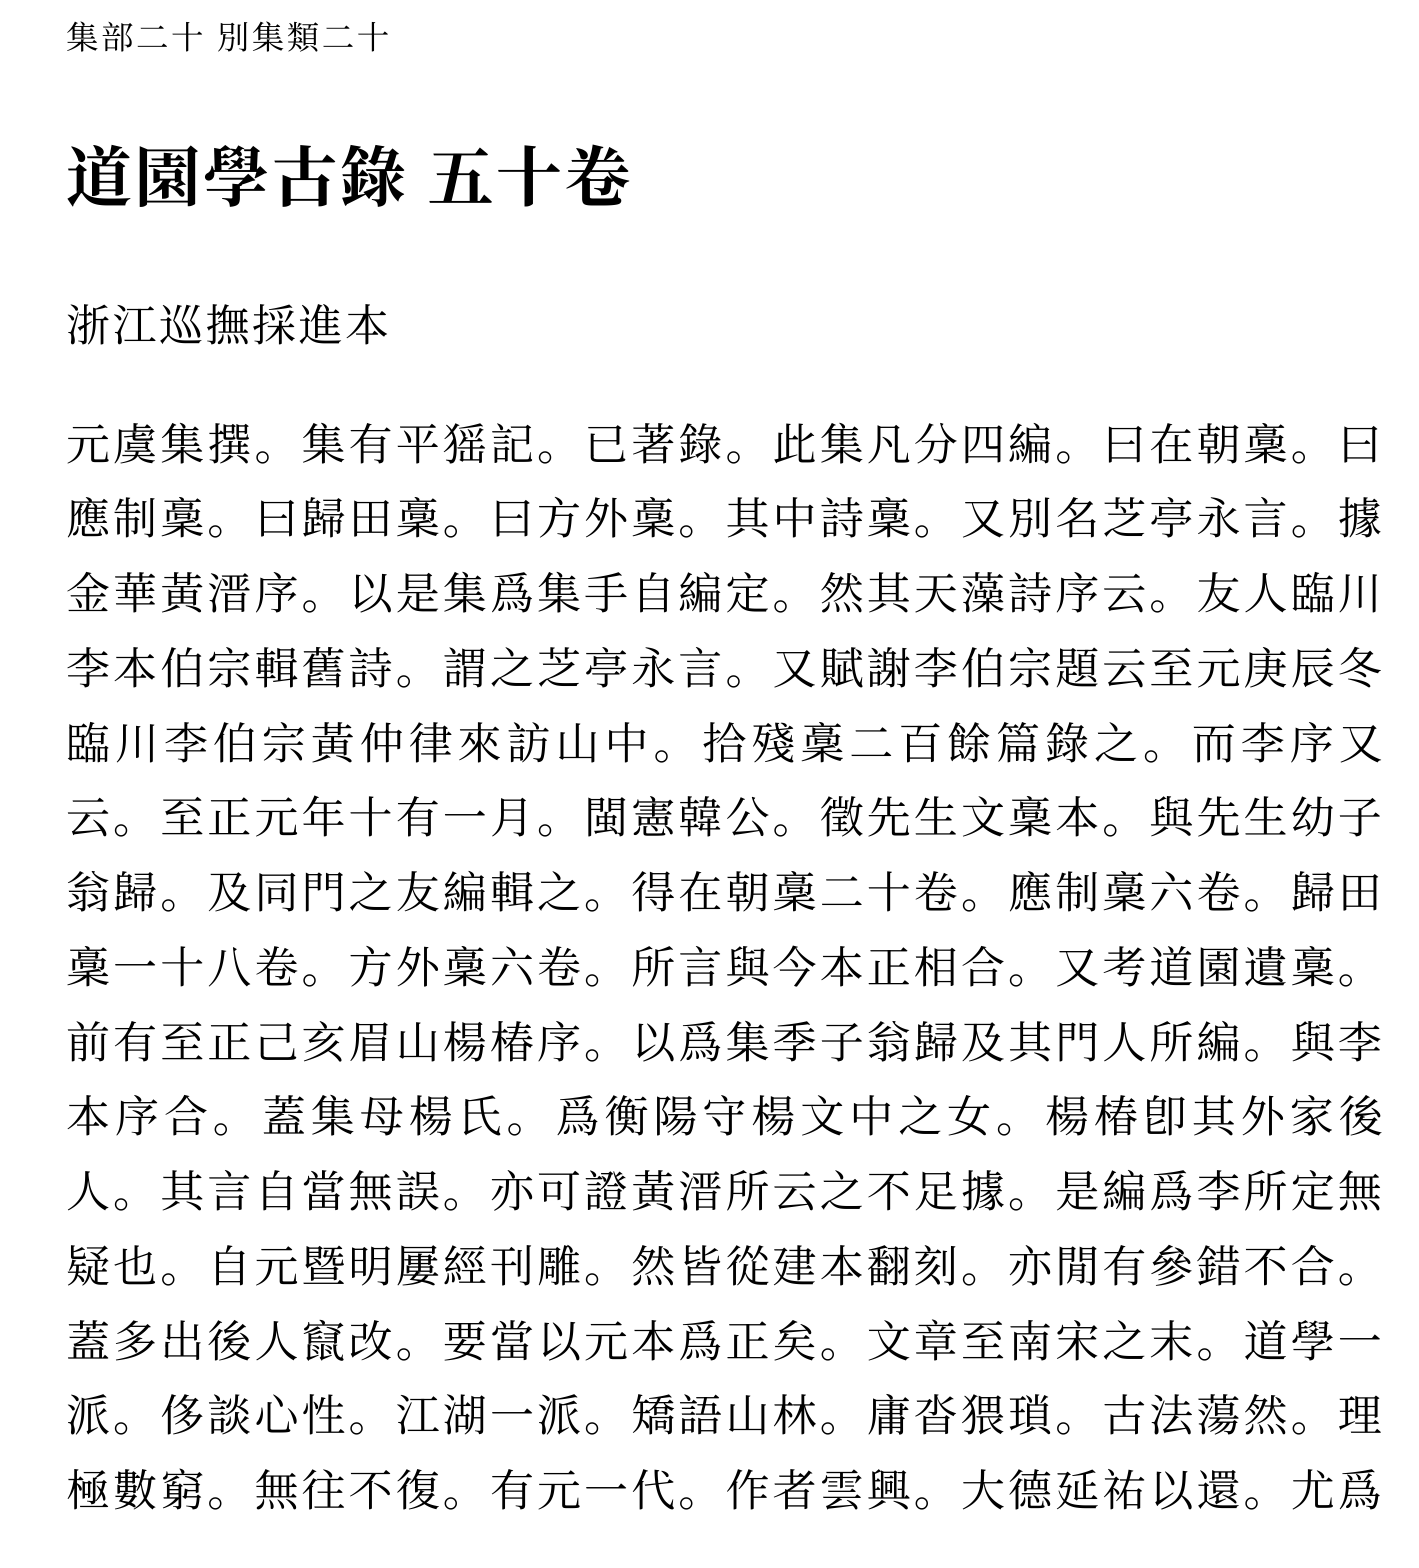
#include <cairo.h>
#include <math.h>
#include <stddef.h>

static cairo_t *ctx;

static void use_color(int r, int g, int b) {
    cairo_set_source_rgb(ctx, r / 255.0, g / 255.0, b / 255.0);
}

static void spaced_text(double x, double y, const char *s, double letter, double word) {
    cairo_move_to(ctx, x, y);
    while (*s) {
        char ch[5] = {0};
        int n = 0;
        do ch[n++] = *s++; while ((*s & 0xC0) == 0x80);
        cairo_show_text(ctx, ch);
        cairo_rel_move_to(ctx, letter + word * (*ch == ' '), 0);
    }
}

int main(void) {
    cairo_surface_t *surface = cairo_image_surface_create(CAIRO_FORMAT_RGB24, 1419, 1568);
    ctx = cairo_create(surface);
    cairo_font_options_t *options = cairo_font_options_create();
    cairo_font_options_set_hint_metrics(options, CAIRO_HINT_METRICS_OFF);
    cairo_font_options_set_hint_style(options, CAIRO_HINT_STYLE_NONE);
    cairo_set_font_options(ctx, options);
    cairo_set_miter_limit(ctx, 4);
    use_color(255, 255, 255);
    cairo_paint(ctx);
    cairo_select_font_face(ctx, "Noto Serif SC", CAIRO_FONT_SLANT_NORMAL, CAIRO_FONT_WEIGHT_NORMAL);
    cairo_set_font_size(ctx, 32.5);
    use_color(0, 0, 0);
    spaced_text(66, 49, "集部二十 別集類二十", 2.5, 0);
    cairo_select_font_face(ctx, "Noto Serif SC", CAIRO_FONT_SLANT_NORMAL, CAIRO_FONT_WEIGHT_BOLD);
    cairo_set_font_size(ctx, 66);
    spaced_text(66, 201, "道園學古錄 五十卷", 2.5, 0);
    cairo_select_font_face(ctx, "Noto Serif SC", CAIRO_FONT_SLANT_NORMAL, CAIRO_FONT_WEIGHT_NORMAL);
    cairo_set_font_size(ctx, 44);
    spaced_text(66, 341, "浙江巡撫採進本", 2.5, 0);
    spaced_text(66, 460, "元虞集撰。集有平猺記。已著錄。此集凡分四編。曰在朝稾。曰", 3.1, 0);
    spaced_text(66, 534, "應制稾。曰歸田稾。曰方外稾。其中詩稾。又別名芝亭永言。據", 3.1, 0);
    spaced_text(66, 609, "金華黃溍序。以是集爲集手自編定。然其天藻詩序云。友人臨川", 3.1, 0);
    spaced_text(66, 684, "李本伯宗輯舊詩。謂之芝亭永言。又賦謝李伯宗題云至元庚辰冬", 3.1, 0);
    spaced_text(66, 759, "臨川李伯宗黃仲律來訪山中。拾殘稾二百餘篇錄之。而李序又", 4.95, 0);
    spaced_text(66, 833, "云。至正元年十有一月。閩憲韓公。徵先生文稾本。與先生幼子", 3.1, 0);
    spaced_text(66, 908, "翁歸。及同門之友編輯之。得在朝稾二十卷。應制稾六卷。歸田", 3.1, 0);
    spaced_text(66, 983, "稾一十八卷。方外稾六卷。所言與今本正相合。又考道園遺稾。", 3.1, 0);
    spaced_text(66, 1058, "前有至正己亥眉山楊椿序。以爲集季子翁歸及其門人所編。與李", 3.1, 0);
    spaced_text(66, 1132, "本序合。蓋集母楊氏。爲衡陽守楊文中之女。楊椿卽其外家後", 4.95, 0);
    spaced_text(66, 1207, "人。其言自當無誤。亦可證黃溍所云之不足據。是編爲李所定無", 3.1, 0);
    spaced_text(66, 1282, "疑也。自元暨明屢經刊雕。然皆從建本翻刻。亦閒有參錯不合。", 3.1, 0);
    spaced_text(66, 1357, "蓋多出後人竄改。要當以元本爲正矣。文章至南宋之末。道學一", 3.1, 0);
    spaced_text(66, 1431, "派。侈談心性。江湖一派。矯語山林。庸沓猥瑣。古法蕩然。理", 3.1, 0);
    spaced_text(66, 1506, "極數窮。無往不復。有元一代。作者雲興。大德延祐以還。尤爲", 3.1, 0);
    cairo_surface_write_to_png(surface, "result.png");
    cairo_font_options_destroy(options);
    cairo_destroy(ctx);
    cairo_surface_destroy(surface);
    return 0;
}
